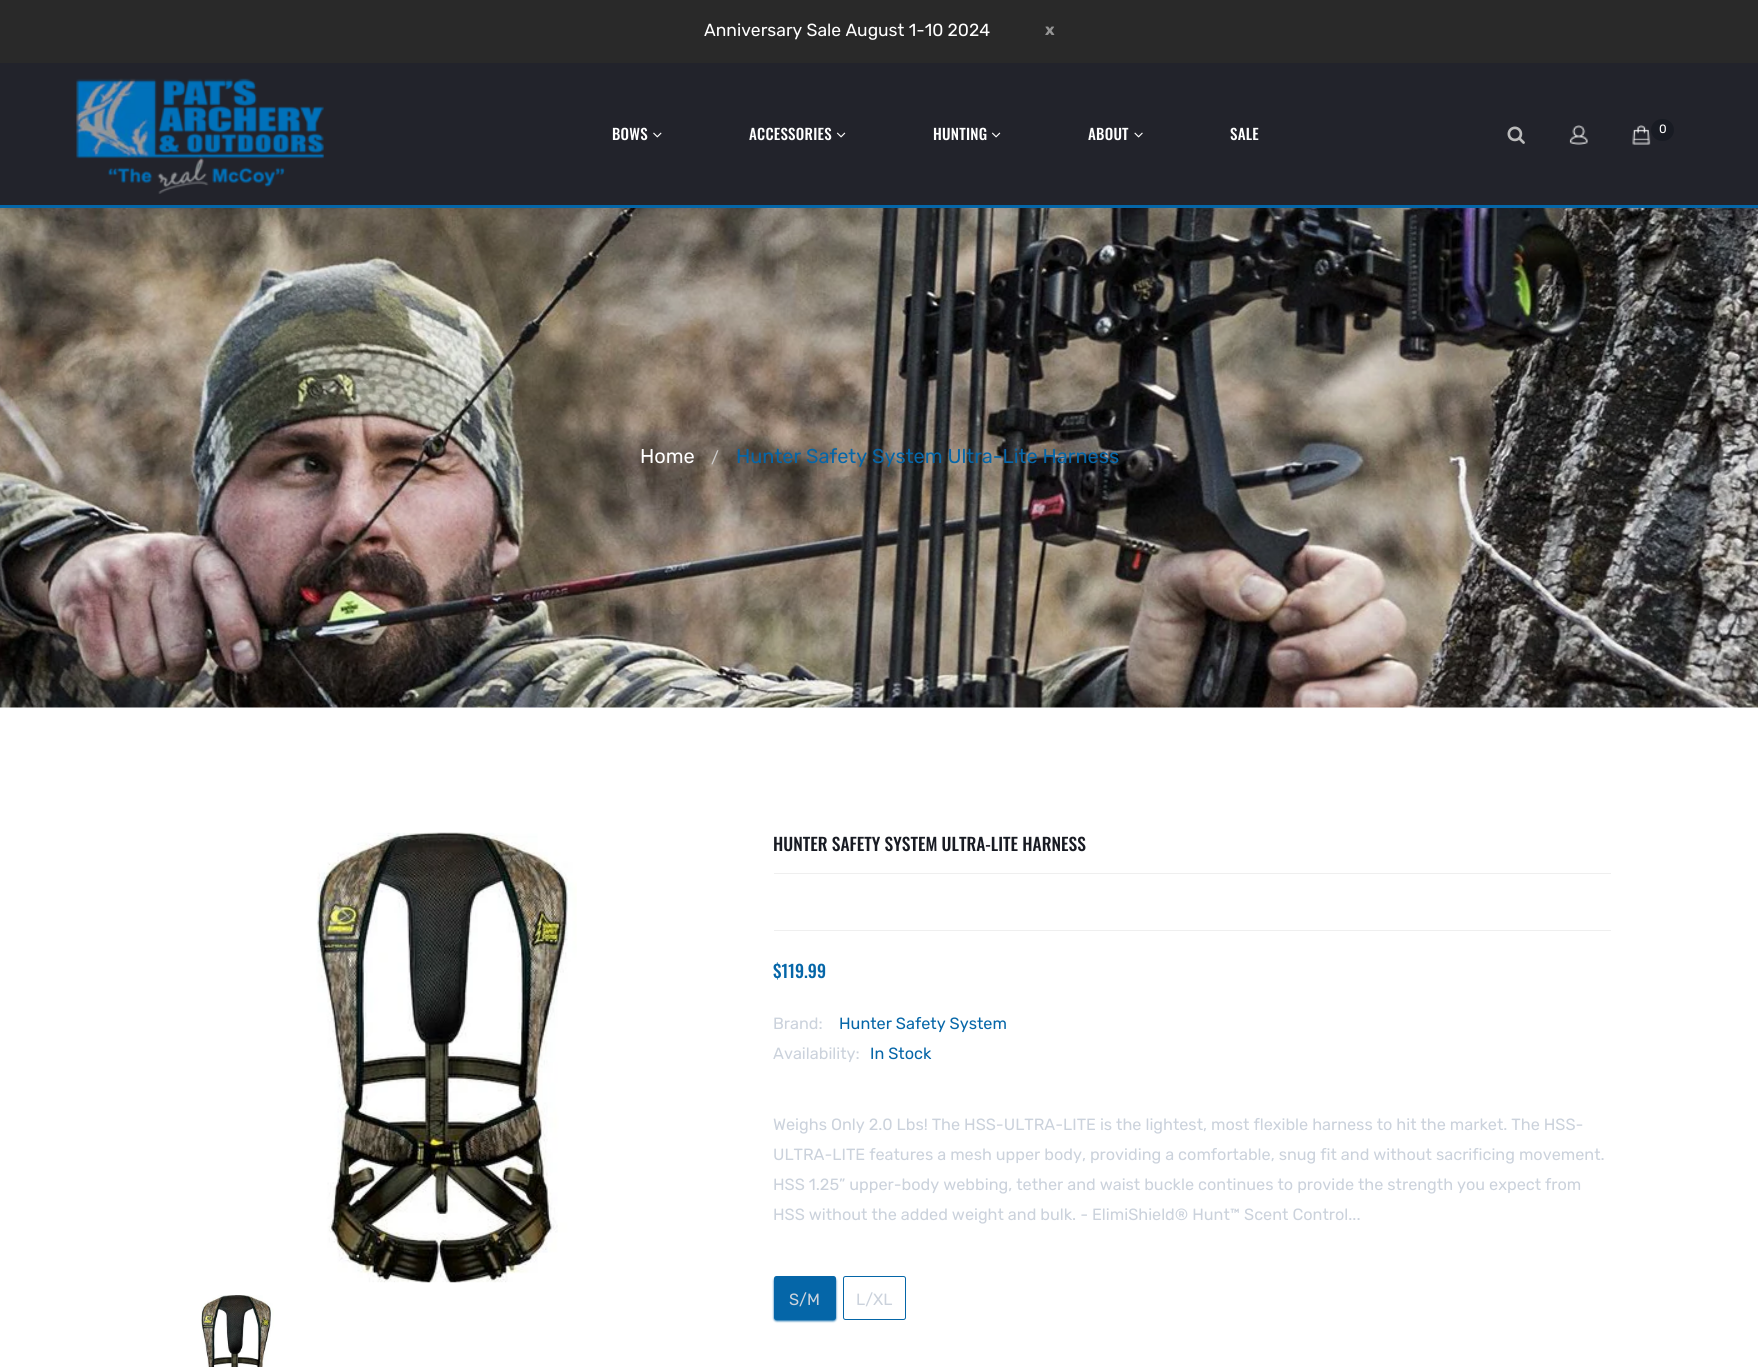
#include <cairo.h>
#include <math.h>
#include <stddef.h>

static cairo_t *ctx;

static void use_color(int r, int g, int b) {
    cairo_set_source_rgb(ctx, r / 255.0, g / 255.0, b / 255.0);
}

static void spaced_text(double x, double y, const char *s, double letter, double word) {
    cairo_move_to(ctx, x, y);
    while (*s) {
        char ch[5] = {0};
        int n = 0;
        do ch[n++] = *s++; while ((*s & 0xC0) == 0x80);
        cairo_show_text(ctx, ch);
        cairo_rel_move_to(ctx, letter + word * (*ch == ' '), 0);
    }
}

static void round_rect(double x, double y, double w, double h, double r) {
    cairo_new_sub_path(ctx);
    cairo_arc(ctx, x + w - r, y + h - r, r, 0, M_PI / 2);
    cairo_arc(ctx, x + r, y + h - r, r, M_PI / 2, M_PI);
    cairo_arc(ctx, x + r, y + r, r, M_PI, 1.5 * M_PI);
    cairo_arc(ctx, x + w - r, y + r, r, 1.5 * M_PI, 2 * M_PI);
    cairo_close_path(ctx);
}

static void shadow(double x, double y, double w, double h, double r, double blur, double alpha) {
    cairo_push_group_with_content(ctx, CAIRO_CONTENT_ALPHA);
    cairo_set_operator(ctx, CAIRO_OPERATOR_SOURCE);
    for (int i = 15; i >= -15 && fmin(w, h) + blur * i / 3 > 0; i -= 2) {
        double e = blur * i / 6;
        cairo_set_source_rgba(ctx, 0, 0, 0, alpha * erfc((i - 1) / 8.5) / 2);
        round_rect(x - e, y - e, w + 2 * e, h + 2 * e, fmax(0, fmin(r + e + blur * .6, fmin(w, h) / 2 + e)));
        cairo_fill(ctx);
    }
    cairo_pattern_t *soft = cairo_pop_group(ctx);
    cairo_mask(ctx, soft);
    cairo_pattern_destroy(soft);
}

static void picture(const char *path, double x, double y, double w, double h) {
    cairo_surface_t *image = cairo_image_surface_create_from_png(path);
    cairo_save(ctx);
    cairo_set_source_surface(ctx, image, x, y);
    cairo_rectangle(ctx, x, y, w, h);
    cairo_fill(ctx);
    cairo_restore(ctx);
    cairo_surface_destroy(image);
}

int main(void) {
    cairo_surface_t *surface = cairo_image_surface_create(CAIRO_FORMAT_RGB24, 1758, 1367);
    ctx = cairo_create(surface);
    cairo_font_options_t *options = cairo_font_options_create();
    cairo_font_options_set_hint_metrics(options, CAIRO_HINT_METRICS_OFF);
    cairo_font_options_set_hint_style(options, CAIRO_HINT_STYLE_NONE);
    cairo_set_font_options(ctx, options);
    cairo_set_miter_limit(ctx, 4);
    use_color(255, 255, 255);
    cairo_paint(ctx);
    use_color(41, 41, 41);
    cairo_rectangle(ctx, 0, 0, 1758, 63);
    cairo_fill(ctx);
    cairo_select_font_face(ctx, "Rubik", CAIRO_FONT_SLANT_NORMAL, CAIRO_FONT_WEIGHT_NORMAL);
    cairo_set_font_size(ctx, 17.5);
    use_color(255, 255, 255);
    cairo_move_to(ctx, 704, 36);
    cairo_show_text(ctx, "Anniversary Sale August 1-10 2024");
    cairo_select_font_face(ctx, "Rubik", CAIRO_FONT_SLANT_NORMAL, CAIRO_FONT_WEIGHT_BOLD);
    cairo_set_font_size(ctx, 16.25);
    use_color(148, 148, 148);
    cairo_move_to(ctx, 1045, 35);
    cairo_show_text(ctx, "x");
    use_color(34, 35, 43);
    cairo_rectangle(ctx, 0, 63, 1758, 142);
    cairo_fill(ctx);
    picture("img1.png", 76, 78, 248, 116);
    cairo_select_font_face(ctx, "Oswald Medium", CAIRO_FONT_SLANT_NORMAL, CAIRO_FONT_WEIGHT_NORMAL);
    cairo_set_font_size(ctx, 15);
    use_color(255, 255, 255);
    spaced_text(612, 140, "BOWS", 0.25, 0);
    picture("img2.png", 653, 132, 9, 6);
    spaced_text(749, 140, "ACCESSORIES", 0.25, 0);
    picture("img3.png", 836, 132, 10, 6);
    spaced_text(933, 140, "HUNTING", 0.25, 0);
    picture("img3.png", 991, 132, 10, 6);
    spaced_text(1088, 140, "ABOUT", 0.25, 0);
    picture("img4.png", 1134, 132, 9, 6);
    spaced_text(1230, 140, "SALE", 0.25, 0);
    picture("img5.png", 1507, 126, 18, 18);
    picture("img6.png", 1569, 125, 19, 20);
    picture("img7.png", 1632, 125, 19, 20);
    use_color(24, 27, 35);
    round_rect(1651, 119, 23, 22, 11);
    cairo_fill(ctx);
    cairo_select_font_face(ctx, "Rubik", CAIRO_FONT_SLANT_NORMAL, CAIRO_FONT_WEIGHT_NORMAL);
    cairo_set_font_size(ctx, 12);
    use_color(255, 255, 255);
    cairo_move_to(ctx, 1659, 133);
    cairo_show_text(ctx, "0");
    use_color(5, 102, 168);
    cairo_rectangle(ctx, 0, 205, 1758, 3);
    cairo_fill(ctx);
    picture("img8.png", 0, 208, 1758, 500);
    cairo_set_font_size(ctx, 20);
    use_color(255, 255, 255);
    cairo_move_to(ctx, 640, 463);
    cairo_show_text(ctx, "Home");
    cairo_set_font_size(ctx, 16.25);
    use_color(204, 204, 204);
    cairo_move_to(ctx, 711, 463);
    cairo_show_text(ctx, "/");
    cairo_set_font_size(ctx, 20);
    use_color(5, 102, 168);
    cairo_move_to(ctx, 736, 463);
    cairo_show_text(ctx, "Hunter Safety System Ultra-Lite Harness");
    picture("img9.png", 316, 832, 261, 451);
    picture("img10.png", 201, 1295, 73, 72);
    use_color(239, 239, 239);
    cairo_rectangle(ctx, 774, 873, 837, 1);
    cairo_fill(ctx);
    cairo_select_font_face(ctx, "Oswald Medium", CAIRO_FONT_SLANT_NORMAL, CAIRO_FONT_WEIGHT_NORMAL);
    cairo_set_font_size(ctx, 17.5);
    use_color(24, 27, 35);
    cairo_move_to(ctx, 773, 851);
    cairo_show_text(ctx, "HUNTER SAFETY SYSTEM ULTRA-LITE HARNESS");
    use_color(239, 239, 239);
    cairo_rectangle(ctx, 774, 930, 837, 1);
    cairo_fill(ctx);
    use_color(5, 102, 168);
    cairo_move_to(ctx, 773, 978);
    cairo_show_text(ctx, "$119.99");
    cairo_select_font_face(ctx, "Rubik", CAIRO_FONT_SLANT_NORMAL, CAIRO_FONT_WEIGHT_NORMAL);
    cairo_set_font_size(ctx, 16.25);
    use_color(203, 210, 220);
    cairo_move_to(ctx, 773, 1029);
    cairo_show_text(ctx, "Brand:");
    use_color(5, 102, 168);
    cairo_move_to(ctx, 839, 1029);
    cairo_show_text(ctx, "Hunter Safety System");
    use_color(203, 210, 220);
    cairo_move_to(ctx, 773, 1059);
    cairo_show_text(ctx, "Availability:");
    use_color(5, 102, 168);
    cairo_move_to(ctx, 870, 1059);
    cairo_show_text(ctx, "In Stock");
    use_color(203, 210, 220);
    cairo_move_to(ctx, 773, 1130);
    cairo_show_text(ctx, "Weighs Only 2.0 Lbs! The HSS-ULTRA-LITE is the lightest, most flexible harness to hit the market. The HSS-");
    cairo_move_to(ctx, 773, 1160);
    cairo_show_text(ctx, "ULTRA-LITE features a mesh upper body, providing a comfortable, snug fit and without sacrificing movement.");
    cairo_move_to(ctx, 773, 1190);
    cairo_show_text(ctx, "HSS 1.25” upper-body webbing, tether and waist buckle continues to provide the strength you expect from");
    cairo_move_to(ctx, 773, 1220);
    cairo_show_text(ctx, "HSS without the added weight and bulk. - ElimiShield® Hunt™ Scent Control...");
    use_color(5, 102, 168);
    shadow(774, 1278, 62, 43, 2.5, 1, 1);
    use_color(5, 102, 168);
    round_rect(774, 1276, 62, 44, 2.5);
    cairo_fill(ctx);
    use_color(203, 210, 220);
    cairo_move_to(ctx, 789, 1305);
    cairo_show_text(ctx, "S/M");
    round_rect(843.5, 1276.5, 62, 43, 2);
    use_color(5, 102, 168);
    cairo_set_line_width(ctx, 1);
    cairo_stroke(ctx);
    use_color(203, 210, 220);
    cairo_move_to(ctx, 856, 1305);
    cairo_show_text(ctx, "L/XL");
    cairo_surface_write_to_png(surface, "result.png");
    cairo_font_options_destroy(options);
    cairo_destroy(ctx);
    cairo_surface_destroy(surface);
    return 0;
}
